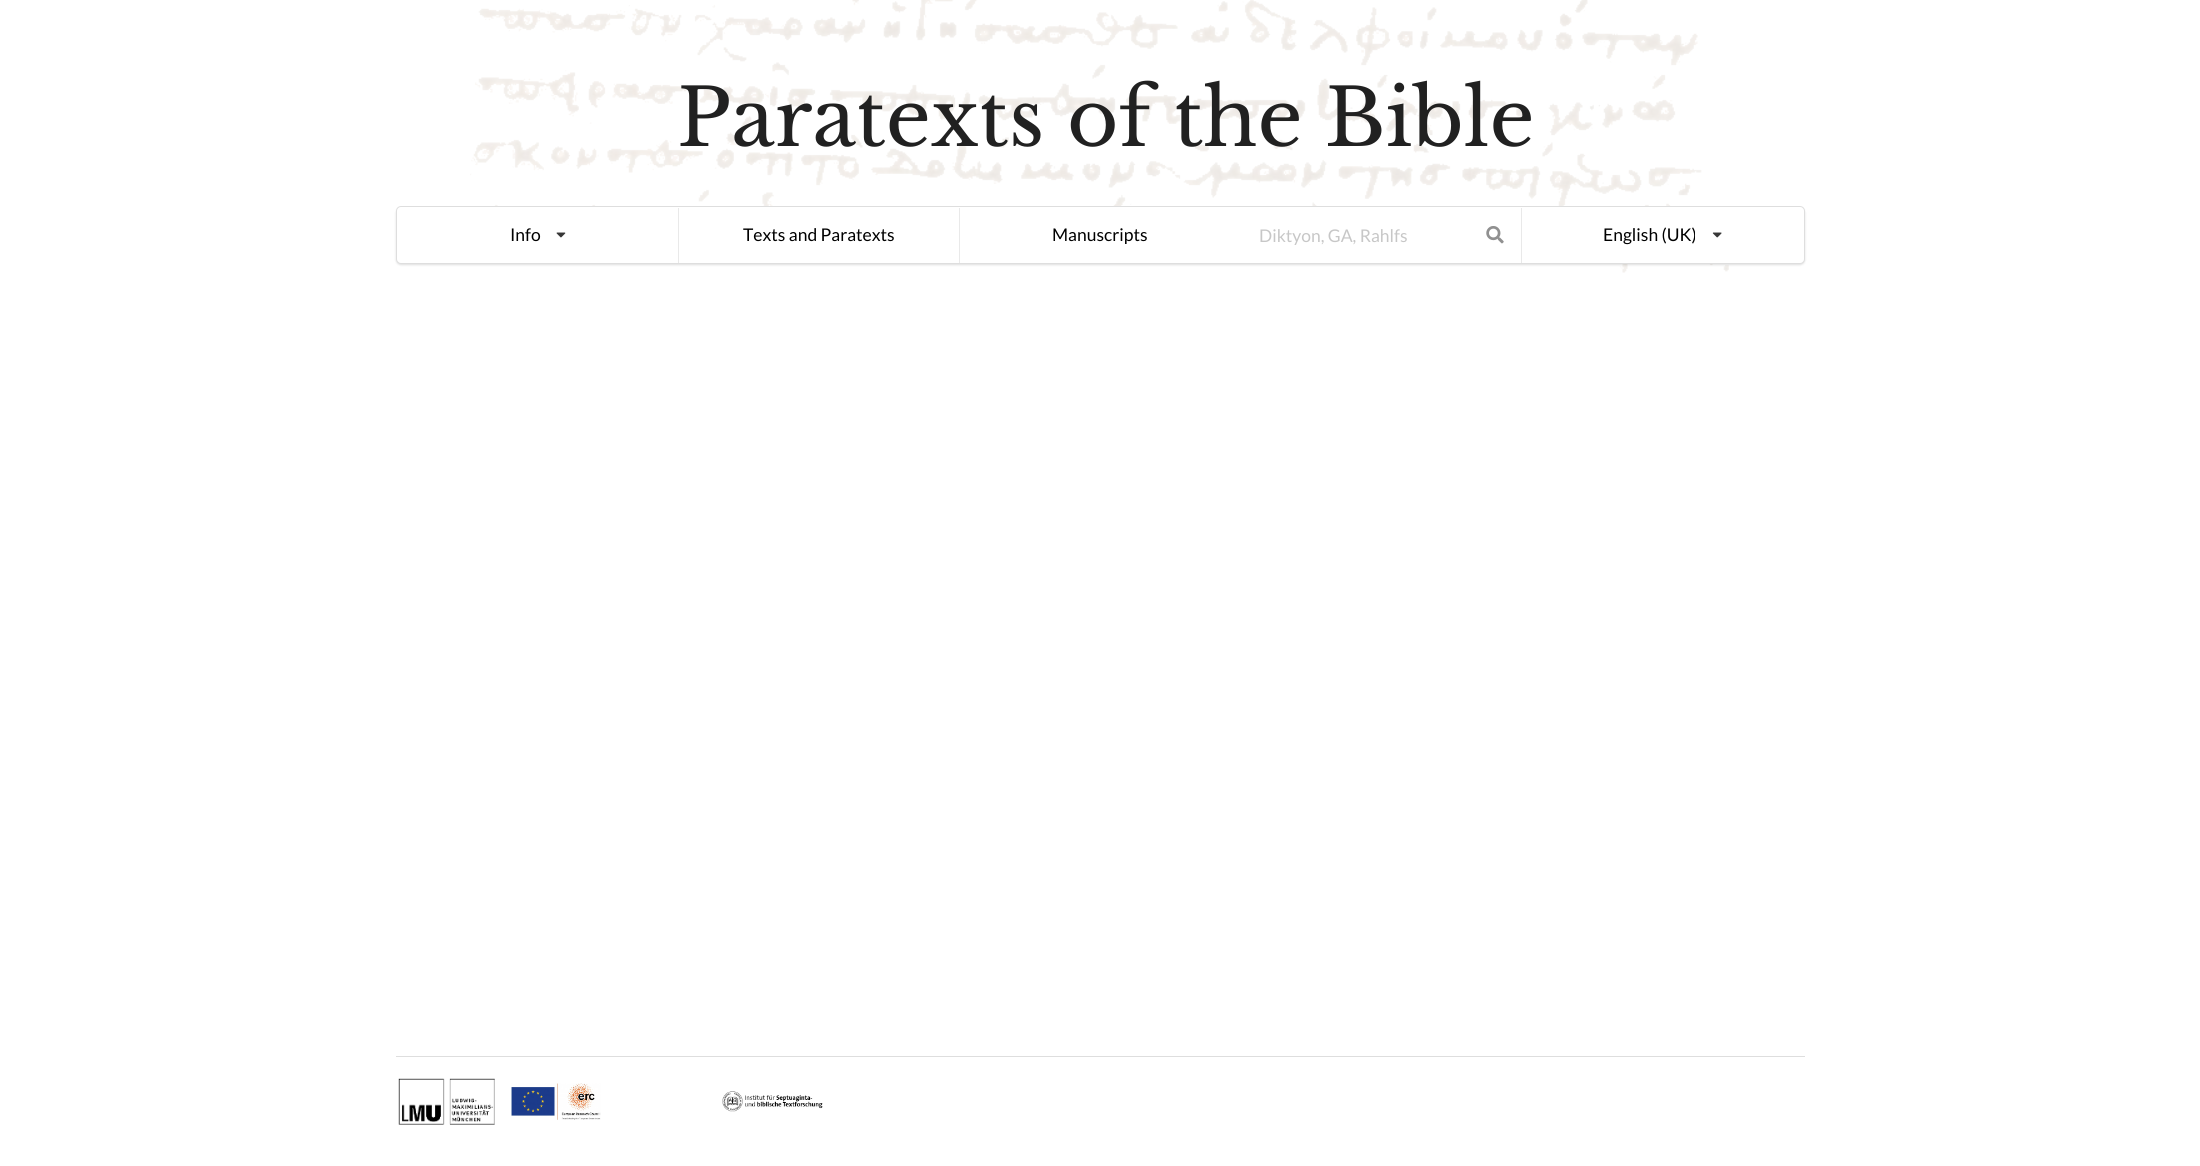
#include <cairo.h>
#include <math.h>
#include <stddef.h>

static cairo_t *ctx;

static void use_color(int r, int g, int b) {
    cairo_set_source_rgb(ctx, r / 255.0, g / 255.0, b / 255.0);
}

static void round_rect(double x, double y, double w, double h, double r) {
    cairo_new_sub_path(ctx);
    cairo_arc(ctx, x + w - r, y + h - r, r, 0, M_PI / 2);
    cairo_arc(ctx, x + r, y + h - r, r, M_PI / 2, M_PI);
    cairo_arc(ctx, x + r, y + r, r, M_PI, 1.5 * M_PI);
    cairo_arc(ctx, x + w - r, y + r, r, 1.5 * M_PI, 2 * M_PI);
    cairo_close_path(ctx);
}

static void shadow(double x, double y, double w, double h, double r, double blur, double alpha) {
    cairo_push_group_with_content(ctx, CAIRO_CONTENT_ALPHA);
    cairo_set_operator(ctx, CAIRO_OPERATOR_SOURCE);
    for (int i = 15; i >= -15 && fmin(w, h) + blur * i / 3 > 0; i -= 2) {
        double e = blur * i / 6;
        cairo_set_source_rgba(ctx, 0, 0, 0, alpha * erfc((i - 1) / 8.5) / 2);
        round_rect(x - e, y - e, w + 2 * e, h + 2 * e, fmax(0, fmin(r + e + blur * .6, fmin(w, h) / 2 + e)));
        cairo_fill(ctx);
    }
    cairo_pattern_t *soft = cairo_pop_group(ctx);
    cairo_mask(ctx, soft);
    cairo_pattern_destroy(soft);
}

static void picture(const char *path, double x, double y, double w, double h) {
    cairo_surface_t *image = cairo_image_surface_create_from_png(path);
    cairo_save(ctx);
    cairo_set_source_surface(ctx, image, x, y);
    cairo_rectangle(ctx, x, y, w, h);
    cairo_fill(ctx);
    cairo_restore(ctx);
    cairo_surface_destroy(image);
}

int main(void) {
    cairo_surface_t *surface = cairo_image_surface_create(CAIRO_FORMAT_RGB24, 2200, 1166);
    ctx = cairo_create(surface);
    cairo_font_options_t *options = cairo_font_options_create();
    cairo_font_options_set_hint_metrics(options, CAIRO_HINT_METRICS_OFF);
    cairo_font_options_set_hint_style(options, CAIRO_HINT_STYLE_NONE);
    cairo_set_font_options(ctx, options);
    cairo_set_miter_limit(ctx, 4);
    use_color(255, 255, 255);
    cairo_paint(ctx);
    picture("img1.png", 470, 0, 1259, 273);
    cairo_select_font_face(ctx, "Libre Baskerville", CAIRO_FONT_SLANT_NORMAL, CAIRO_FONT_WEIGHT_NORMAL);
    cairo_set_font_size(ctx, 78.75);
    use_color(33, 33, 33);
    cairo_move_to(ctx, 677, 146);
    cairo_show_text(ctx, "Paratexts of the Bible");
    use_color(34, 36, 38);
    shadow(396, 208, 1409, 57, 5, 1, 0.15);
    use_color(255, 255, 255);
    round_rect(396, 206, 1409, 58, 5);
    cairo_fill(ctx);
    round_rect(396.5, 206.5, 1408, 57, 4.5);
    cairo_set_source_rgba(ctx, 0.133, 0.141, 0.149, 0.15);
    cairo_set_line_width(ctx, 1);
    cairo_stroke(ctx);
    cairo_select_font_face(ctx, "Lato", CAIRO_FONT_SLANT_NORMAL, CAIRO_FONT_WEIGHT_NORMAL);
    cairo_set_font_size(ctx, 17.5);
    use_color(0, 0, 0);
    cairo_move_to(ctx, 510, 241);
    cairo_show_text(ctx, "Info");
    picture("img2.png", 556, 232, 10, 6);
    use_color(233, 233, 233);
    cairo_rectangle(ctx, 678, 208, 1, 55);
    cairo_fill(ctx);
    use_color(0, 0, 0);
    cairo_move_to(ctx, 743, 241);
    cairo_show_text(ctx, "Texts and Paratexts");
    use_color(233, 233, 233);
    cairo_rectangle(ctx, 959, 208, 1, 55);
    cairo_fill(ctx);
    use_color(0, 0, 0);
    cairo_move_to(ctx, 1052, 241);
    cairo_show_text(ctx, "Manuscripts");
    use_color(199, 199, 199);
    cairo_move_to(ctx, 1259, 242);
    cairo_show_text(ctx, "Diktyon, GA, Rahlfs");
    picture("img3.png", 1486, 226, 18, 18);
    use_color(233, 233, 233);
    cairo_rectangle(ctx, 1521, 208, 1, 55);
    cairo_fill(ctx);
    use_color(0, 0, 0);
    cairo_move_to(ctx, 1603, 241);
    cairo_show_text(ctx, "English (UK)");
    picture("img4.png", 1712, 232, 10, 6);
    use_color(222, 222, 222);
    cairo_rectangle(ctx, 396, 1056, 1409, 1);
    cairo_fill(ctx);
    picture("img5.png", 398, 1078, 97, 47);
    picture("img6.png", 511, 1083, 90, 37);
    picture("img7.png", 722, 1091, 101, 21);
    cairo_surface_write_to_png(surface, "result.png");
    cairo_font_options_destroy(options);
    cairo_destroy(ctx);
    cairo_surface_destroy(surface);
    return 0;
}
